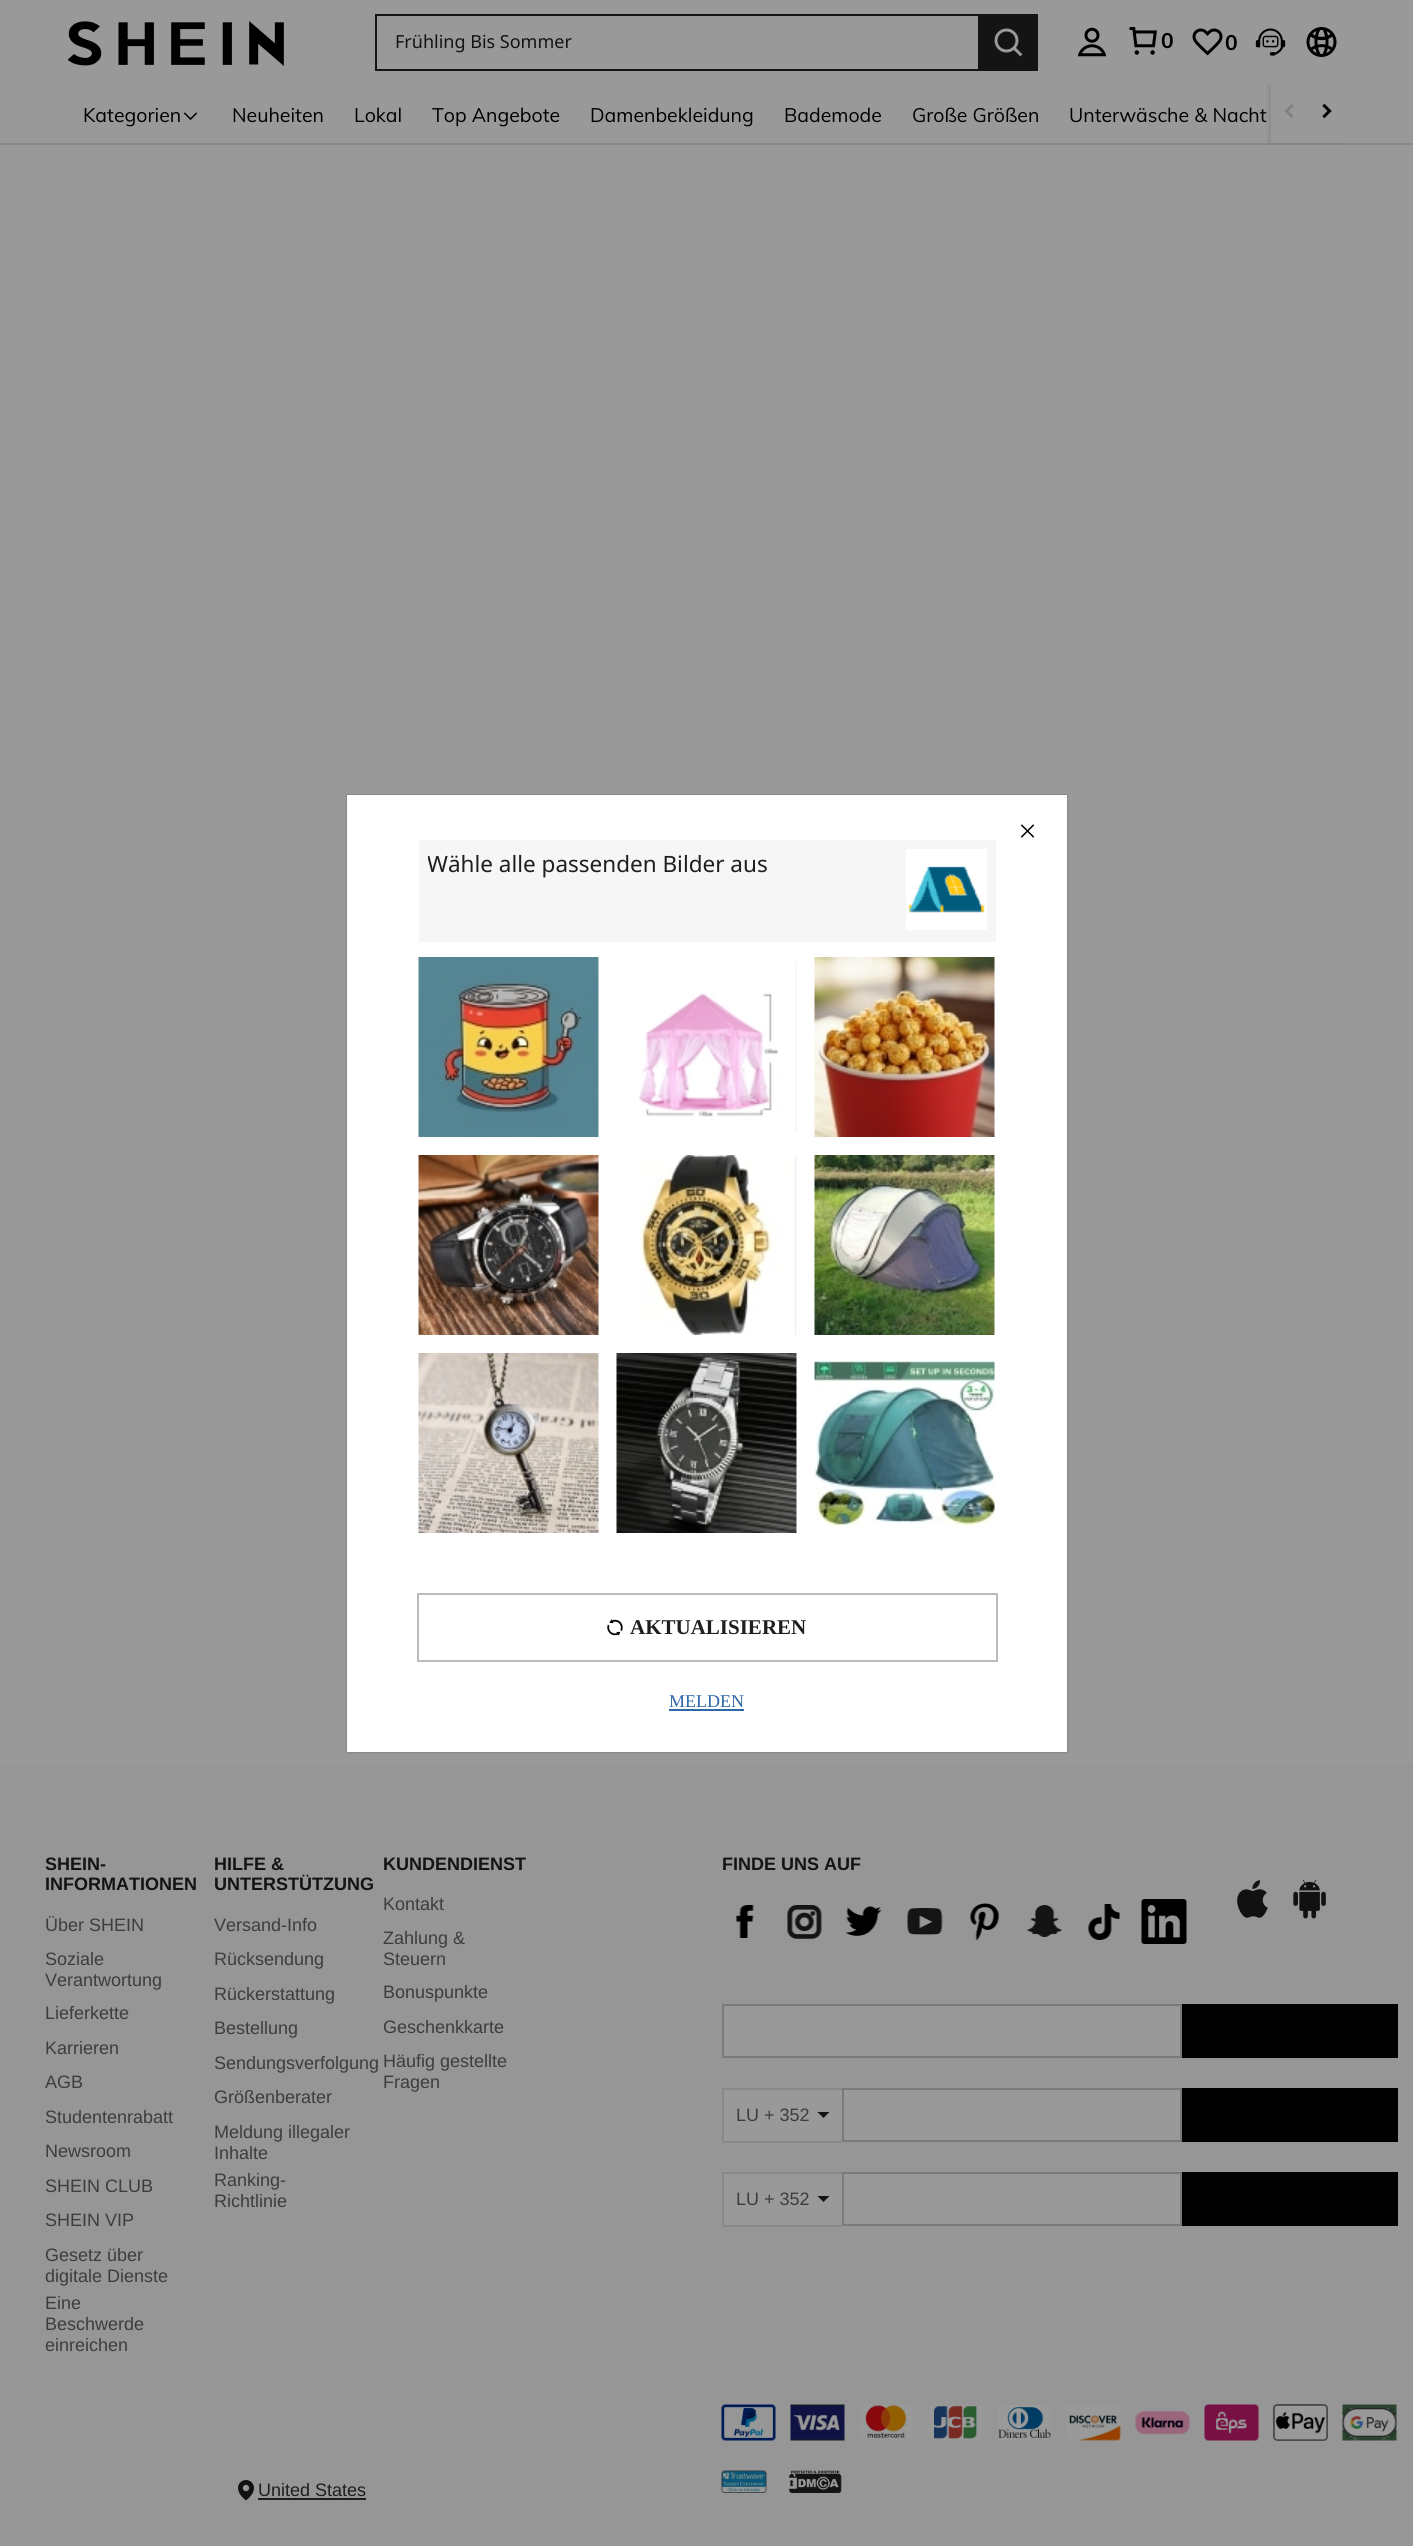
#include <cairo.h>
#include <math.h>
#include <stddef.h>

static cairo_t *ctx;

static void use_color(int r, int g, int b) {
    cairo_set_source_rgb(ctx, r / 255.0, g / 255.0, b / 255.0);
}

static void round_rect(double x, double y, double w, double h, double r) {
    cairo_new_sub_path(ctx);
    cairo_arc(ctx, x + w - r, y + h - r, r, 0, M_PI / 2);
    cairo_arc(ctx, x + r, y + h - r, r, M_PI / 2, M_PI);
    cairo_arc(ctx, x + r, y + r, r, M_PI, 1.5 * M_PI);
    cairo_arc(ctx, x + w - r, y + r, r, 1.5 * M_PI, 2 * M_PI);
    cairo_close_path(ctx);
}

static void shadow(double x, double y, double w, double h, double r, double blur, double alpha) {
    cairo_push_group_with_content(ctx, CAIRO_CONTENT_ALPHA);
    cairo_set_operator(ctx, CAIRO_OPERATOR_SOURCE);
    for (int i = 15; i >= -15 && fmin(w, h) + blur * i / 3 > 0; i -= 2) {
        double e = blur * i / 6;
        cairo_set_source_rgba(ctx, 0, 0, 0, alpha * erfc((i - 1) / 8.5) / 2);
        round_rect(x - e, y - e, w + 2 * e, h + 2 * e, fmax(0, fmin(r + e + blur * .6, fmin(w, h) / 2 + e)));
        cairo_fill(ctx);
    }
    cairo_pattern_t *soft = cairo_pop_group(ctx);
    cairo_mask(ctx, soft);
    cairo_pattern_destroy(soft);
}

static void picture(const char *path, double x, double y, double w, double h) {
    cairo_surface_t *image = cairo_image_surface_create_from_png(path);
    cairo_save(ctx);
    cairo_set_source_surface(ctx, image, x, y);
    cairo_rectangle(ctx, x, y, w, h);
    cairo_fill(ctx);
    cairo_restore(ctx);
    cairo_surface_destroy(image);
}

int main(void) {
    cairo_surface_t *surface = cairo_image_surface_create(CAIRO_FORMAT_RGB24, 1413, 2546);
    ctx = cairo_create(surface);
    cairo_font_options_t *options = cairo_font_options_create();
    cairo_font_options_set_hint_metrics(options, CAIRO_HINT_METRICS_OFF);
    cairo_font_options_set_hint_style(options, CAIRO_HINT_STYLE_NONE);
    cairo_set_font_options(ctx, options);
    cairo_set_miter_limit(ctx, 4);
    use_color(153, 153, 153);
    cairo_paint(ctx);
    use_color(137, 137, 137);
    cairo_rectangle(ctx, 0, 143, 1413, 2);
    cairo_fill(ctx);
    use_color(0, 0, 0);
    shadow(1268, 84, 75, 59, 0, 2, 0.08);
    use_color(153, 153, 153);
    cairo_rectangle(ctx, 1268, 82, 75, 2);
    cairo_fill(ctx);
    picture("img1.png", 68, 21, 216, 45);
    use_color(20, 20, 20);
    cairo_rectangle(ctx, 375, 14, 603, 2);
    cairo_fill(ctx);
    cairo_rectangle(ctx, 375, 69, 603, 2);
    cairo_fill(ctx);
    cairo_rectangle(ctx, 375, 14, 2, 57);
    cairo_fill(ctx);
    cairo_select_font_face(ctx, "Noto Sans", CAIRO_FONT_SLANT_NORMAL, CAIRO_FONT_WEIGHT_NORMAL);
    cairo_set_font_size(ctx, 18);
    cairo_move_to(ctx, 395, 48);
    cairo_show_text(ctx, "Frühling Bis Sommer");
    cairo_rectangle(ctx, 978, 14, 60, 57);
    cairo_fill(ctx);
    picture("img2.png", 994, 28, 29, 29);
    picture("img3.png", 1077, 27, 30, 30);
    picture("img4.png", 1129, 27, 28, 28);
    cairo_select_font_face(ctx, "Muli", CAIRO_FONT_SLANT_NORMAL, CAIRO_FONT_WEIGHT_BOLD);
    cairo_set_font_size(ctx, 21);
    use_color(0, 0, 0);
    cairo_move_to(ctx, 1161, 48);
    cairo_show_text(ctx, "0");
    picture("img5.png", 1192, 28, 31, 28);
    cairo_move_to(ctx, 1225, 50);
    cairo_show_text(ctx, "0");
    picture("img6.png", 1255, 28, 31, 28);
    picture("img7.png", 1306, 27, 31, 30);
    cairo_select_font_face(ctx, "Muli", CAIRO_FONT_SLANT_NORMAL, CAIRO_FONT_WEIGHT_NORMAL);
    cairo_set_font_size(ctx, 19.5);
    cairo_move_to(ctx, 83, 122);
    cairo_show_text(ctx, "Kategorien");
    picture("img8.png", 183, 112, 15, 8);
    cairo_move_to(ctx, 232, 122);
    cairo_show_text(ctx, "Neuheiten");
    cairo_move_to(ctx, 354, 122);
    cairo_show_text(ctx, "Lokal");
    cairo_move_to(ctx, 432, 122);
    cairo_show_text(ctx, "Top Angebote");
    cairo_move_to(ctx, 590, 122);
    cairo_show_text(ctx, "Damenbekleidung");
    cairo_move_to(ctx, 784, 122);
    cairo_show_text(ctx, "Bademode");
    cairo_move_to(ctx, 912, 122);
    cairo_show_text(ctx, "Große Größen");
    cairo_move_to(ctx, 1069, 122);
    cairo_show_text(ctx, "Unterwäsche & Nacht");
    use_color(153, 153, 153);
    cairo_rectangle(ctx, 1271, 84, 74, 59);
    cairo_fill(ctx);
    picture("img9.png", 1284, 104, 10, 14);
    picture("img10.png", 1322, 103, 10, 16);
    use_color(150, 150, 150);
    cairo_rectangle(ctx, 0, 1764, 1413, 782);
    cairo_fill(ctx);
    cairo_select_font_face(ctx, "Liberation Sans", CAIRO_FONT_SLANT_NORMAL, CAIRO_FONT_WEIGHT_BOLD);
    cairo_set_font_size(ctx, 18);
    use_color(20, 20, 20);
    cairo_move_to(ctx, 45, 1870);
    cairo_show_text(ctx, "SHEIN-");
    cairo_move_to(ctx, 45, 1890);
    cairo_show_text(ctx, "INFORMATIONEN");
    cairo_select_font_face(ctx, "Liberation Sans", CAIRO_FONT_SLANT_NORMAL, CAIRO_FONT_WEIGHT_NORMAL);
    use_color(61, 61, 61);
    cairo_move_to(ctx, 45, 1931);
    cairo_show_text(ctx, "Über SHEIN");
    cairo_move_to(ctx, 45, 1965);
    cairo_show_text(ctx, "Soziale");
    cairo_move_to(ctx, 45, 1986);
    cairo_show_text(ctx, "Verantwortung");
    cairo_move_to(ctx, 45, 2019);
    cairo_show_text(ctx, "Lieferkette");
    cairo_move_to(ctx, 45, 2054);
    cairo_show_text(ctx, "Karrieren");
    cairo_move_to(ctx, 45, 2088);
    cairo_show_text(ctx, "AGB");
    cairo_move_to(ctx, 45, 2123);
    cairo_show_text(ctx, "Studentenrabatt");
    cairo_move_to(ctx, 45, 2157);
    cairo_show_text(ctx, "Newsroom");
    cairo_move_to(ctx, 45, 2192);
    cairo_show_text(ctx, "SHEIN CLUB");
    cairo_move_to(ctx, 45, 2226);
    cairo_show_text(ctx, "SHEIN VIP");
    cairo_move_to(ctx, 45, 2261);
    cairo_show_text(ctx, "Gesetz über");
    cairo_move_to(ctx, 45, 2282);
    cairo_show_text(ctx, "digitale Dienste");
    cairo_move_to(ctx, 45, 2309);
    cairo_show_text(ctx, "Eine");
    cairo_move_to(ctx, 45, 2330);
    cairo_show_text(ctx, "Beschwerde");
    cairo_move_to(ctx, 45, 2351);
    cairo_show_text(ctx, "einreichen");
    cairo_select_font_face(ctx, "Liberation Sans", CAIRO_FONT_SLANT_NORMAL, CAIRO_FONT_WEIGHT_BOLD);
    use_color(20, 20, 20);
    cairo_move_to(ctx, 214, 1870);
    cairo_show_text(ctx, "HILFE &");
    cairo_move_to(ctx, 214, 1890);
    cairo_show_text(ctx, "UNTERSTÜTZUNG");
    cairo_select_font_face(ctx, "Liberation Sans", CAIRO_FONT_SLANT_NORMAL, CAIRO_FONT_WEIGHT_NORMAL);
    use_color(61, 61, 61);
    cairo_move_to(ctx, 214, 1931);
    cairo_show_text(ctx, "Versand-Info");
    cairo_move_to(ctx, 214, 1965);
    cairo_show_text(ctx, "Rücksendung");
    cairo_move_to(ctx, 214, 2000);
    cairo_show_text(ctx, "Rückerstattung");
    cairo_move_to(ctx, 214, 2034);
    cairo_show_text(ctx, "Bestellung");
    cairo_move_to(ctx, 214, 2069);
    cairo_show_text(ctx, "Sendungsverfolgung");
    cairo_move_to(ctx, 214, 2103);
    cairo_show_text(ctx, "Größenberater");
    cairo_move_to(ctx, 214, 2138);
    cairo_show_text(ctx, "Meldung illegaler");
    cairo_move_to(ctx, 214, 2159);
    cairo_show_text(ctx, "Inhalte");
    cairo_move_to(ctx, 214, 2186);
    cairo_show_text(ctx, "Ranking-");
    cairo_move_to(ctx, 214, 2207);
    cairo_show_text(ctx, "Richtlinie");
    cairo_select_font_face(ctx, "Liberation Sans", CAIRO_FONT_SLANT_NORMAL, CAIRO_FONT_WEIGHT_BOLD);
    use_color(20, 20, 20);
    cairo_move_to(ctx, 383, 1870);
    cairo_show_text(ctx, "KUNDENDIENST");
    cairo_select_font_face(ctx, "Liberation Sans", CAIRO_FONT_SLANT_NORMAL, CAIRO_FONT_WEIGHT_NORMAL);
    use_color(61, 61, 61);
    cairo_move_to(ctx, 383, 1910);
    cairo_show_text(ctx, "Kontakt");
    cairo_move_to(ctx, 383, 1944);
    cairo_show_text(ctx, "Zahlung &");
    cairo_move_to(ctx, 383, 1965);
    cairo_show_text(ctx, "Steuern");
    cairo_move_to(ctx, 383, 1998);
    cairo_show_text(ctx, "Bonuspunkte");
    cairo_move_to(ctx, 383, 2033);
    cairo_show_text(ctx, "Geschenkkarte");
    cairo_move_to(ctx, 383, 2067);
    cairo_show_text(ctx, "Häufig gestellte");
    cairo_move_to(ctx, 383, 2088);
    cairo_show_text(ctx, "Fragen");
    cairo_select_font_face(ctx, "Liberation Sans", CAIRO_FONT_SLANT_NORMAL, CAIRO_FONT_WEIGHT_BOLD);
    use_color(20, 20, 20);
    cairo_move_to(ctx, 722, 1870);
    cairo_show_text(ctx, "FINDE UNS AUF");
    picture("img11.png", 736, 1905, 18, 33);
    picture("img12.png", 787, 1905, 35, 34);
    picture("img13.png", 845, 1906, 37, 30);
    picture("img14.png", 907, 1908, 36, 27);
    picture("img15.png", 970, 1903, 30, 37);
    picture("img16.png", 1027, 1905, 35, 33);
    picture("img17.png", 1088, 1904, 32, 36);
    picture("img18.png", 1141, 1899, 46, 45);
    picture("img19.png", 1237, 1880, 31, 38);
    picture("img20.png", 1293, 1879, 33, 40);
    use_color(153, 153, 153);
    cairo_rectangle(ctx, 723, 2005, 458, 52);
    cairo_fill_preserve(ctx);
    use_color(122, 122, 122);
    cairo_stroke(ctx);
    use_color(0, 0, 0);
    cairo_rectangle(ctx, 1182, 2004, 216, 54);
    cairo_fill(ctx);
    use_color(153, 153, 153);
    cairo_rectangle(ctx, 724, 2090, 118, 51);
    cairo_fill(ctx);
    use_color(137, 137, 137);
    cairo_rectangle(ctx, 722, 2088, 120, 2);
    cairo_fill(ctx);
    cairo_rectangle(ctx, 722, 2141, 120, 2);
    cairo_fill(ctx);
    cairo_rectangle(ctx, 722, 2088, 2, 54);
    cairo_fill(ctx);
    cairo_select_font_face(ctx, "Liberation Sans", CAIRO_FONT_SLANT_NORMAL, CAIRO_FONT_WEIGHT_NORMAL);
    use_color(61, 61, 61);
    cairo_move_to(ctx, 736, 2121);
    cairo_show_text(ctx, "LU + 352");
    use_color(20, 20, 20);
    cairo_new_path(ctx);
    cairo_move_to(ctx, 817.5, 2112);
    cairo_line_to(ctx, 829.5, 2112);
    cairo_line_to(ctx, 823.5, 2118);
    cairo_close_path(ctx);
    cairo_fill(ctx);
    use_color(153, 153, 153);
    cairo_rectangle(ctx, 843, 2089, 338, 52);
    cairo_fill_preserve(ctx);
    use_color(122, 122, 122);
    cairo_stroke(ctx);
    use_color(0, 0, 0);
    cairo_rectangle(ctx, 1182, 2088, 216, 54);
    cairo_fill(ctx);
    use_color(153, 153, 153);
    cairo_rectangle(ctx, 724, 2174, 118, 51);
    cairo_fill(ctx);
    use_color(137, 137, 137);
    cairo_rectangle(ctx, 722, 2172, 120, 2);
    cairo_fill(ctx);
    cairo_rectangle(ctx, 722, 2225, 120, 2);
    cairo_fill(ctx);
    cairo_rectangle(ctx, 722, 2172, 2, 54);
    cairo_fill(ctx);
    use_color(61, 61, 61);
    cairo_move_to(ctx, 736, 2205);
    cairo_show_text(ctx, "LU + 352");
    use_color(20, 20, 20);
    cairo_new_path(ctx);
    cairo_move_to(ctx, 817.5, 2196);
    cairo_line_to(ctx, 829.5, 2196);
    cairo_line_to(ctx, 823.5, 2202);
    cairo_close_path(ctx);
    cairo_fill(ctx);
    use_color(153, 153, 153);
    cairo_rectangle(ctx, 843, 2173, 338, 52);
    cairo_fill_preserve(ctx);
    use_color(122, 122, 122);
    cairo_stroke(ctx);
    use_color(0, 0, 0);
    cairo_rectangle(ctx, 1182, 2172, 216, 54);
    cairo_fill(ctx);
    picture("img21.png", 721, 2404, 55, 37);
    picture("img22.png", 790, 2404, 55, 37);
    picture("img23.png", 860, 2404, 53, 36);
    picture("img24.png", 929, 2405, 53, 35);
    picture("img25.png", 998, 2405, 53, 35);
    picture("img26.png", 1067, 2405, 54, 36);
    picture("img27.png", 1135, 2410, 55, 25);
    picture("img28.png", 1204, 2404, 55, 37);
    picture("img29.png", 1273, 2404, 55, 37);
    picture("img30.png", 1342, 2404, 55, 37);
    picture("img31.png", 238, 2480, 16, 21);
    use_color(30, 30, 30);
    cairo_move_to(ctx, 258, 2496);
    cairo_show_text(ctx, "United States");
    cairo_rectangle(ctx, 258, 2498, 108, 2);
    cairo_fill(ctx);
    picture("img32.png", 721, 2470, 46, 23);
    picture("img33.png", 789, 2470, 53, 23);
    use_color(0, 0, 0);
    shadow(347, 795, 720, 957, 0, 1, 0.3);
    use_color(255, 255, 255);
    cairo_rectangle(ctx, 347, 795, 720, 957);
    cairo_fill(ctx);
    picture("img34.png", 1020, 824, 15, 14);
    use_color(246, 246, 246);
    cairo_rectangle(ctx, 419, 840, 577, 102);
    cairo_fill(ctx);
    cairo_save(ctx);
    cairo_rectangle(ctx, 428, 849, 450, 84);
    cairo_clip(ctx);
    cairo_select_font_face(ctx, "Noto Sans", CAIRO_FONT_SLANT_NORMAL, CAIRO_FONT_WEIGHT_NORMAL);
    cairo_set_font_size(ctx, 22.5);
    use_color(30, 30, 30);
    cairo_move_to(ctx, 427, 872);
    cairo_show_text(ctx, "Wähle alle passenden Bilder aus");
    cairo_restore(ctx);
    use_color(255, 255, 255);
    cairo_rectangle(ctx, 906, 849, 81, 81);
    cairo_fill(ctx);
    picture("img35.png", 908, 866, 77, 47);
    picture("img36.png", 418, 957, 181, 180);
    picture("img37.png", 638, 962, 159, 171);
    picture("img38.png", 814, 957, 181, 180);
    picture("img39.png", 418, 1155, 181, 180);
    picture("img40.png", 640, 1155, 157, 180);
    picture("img41.png", 814, 1155, 181, 180);
    picture("img42.png", 418, 1353, 181, 180);
    picture("img43.png", 616, 1353, 181, 180);
    picture("img44.png", 814, 1360, 181, 167);
    cairo_rectangle(ctx, 418, 1594, 579, 67);
    use_color(187, 187, 187);
    cairo_stroke(ctx);
    picture("img45.png", 607, 1619, 16, 17);
    cairo_select_font_face(ctx, "Liberation Serif", CAIRO_FONT_SLANT_NORMAL, CAIRO_FONT_WEIGHT_BOLD);
    cairo_set_font_size(ctx, 21);
    use_color(30, 30, 30);
    cairo_move_to(ctx, 630, 1634);
    cairo_show_text(ctx, "AKTUALISIEREN");
    cairo_select_font_face(ctx, "Liberation Serif", CAIRO_FONT_SLANT_NORMAL, CAIRO_FONT_WEIGHT_NORMAL);
    cairo_set_font_size(ctx, 18);
    use_color(45, 104, 168);
    cairo_move_to(ctx, 669, 1707);
    cairo_show_text(ctx, "MELDEN");
    cairo_rectangle(ctx, 669, 1709, 75, 2);
    cairo_fill(ctx);
    cairo_surface_write_to_png(surface, "result.png");
    cairo_font_options_destroy(options);
    cairo_destroy(ctx);
    cairo_surface_destroy(surface);
    return 0;
}
